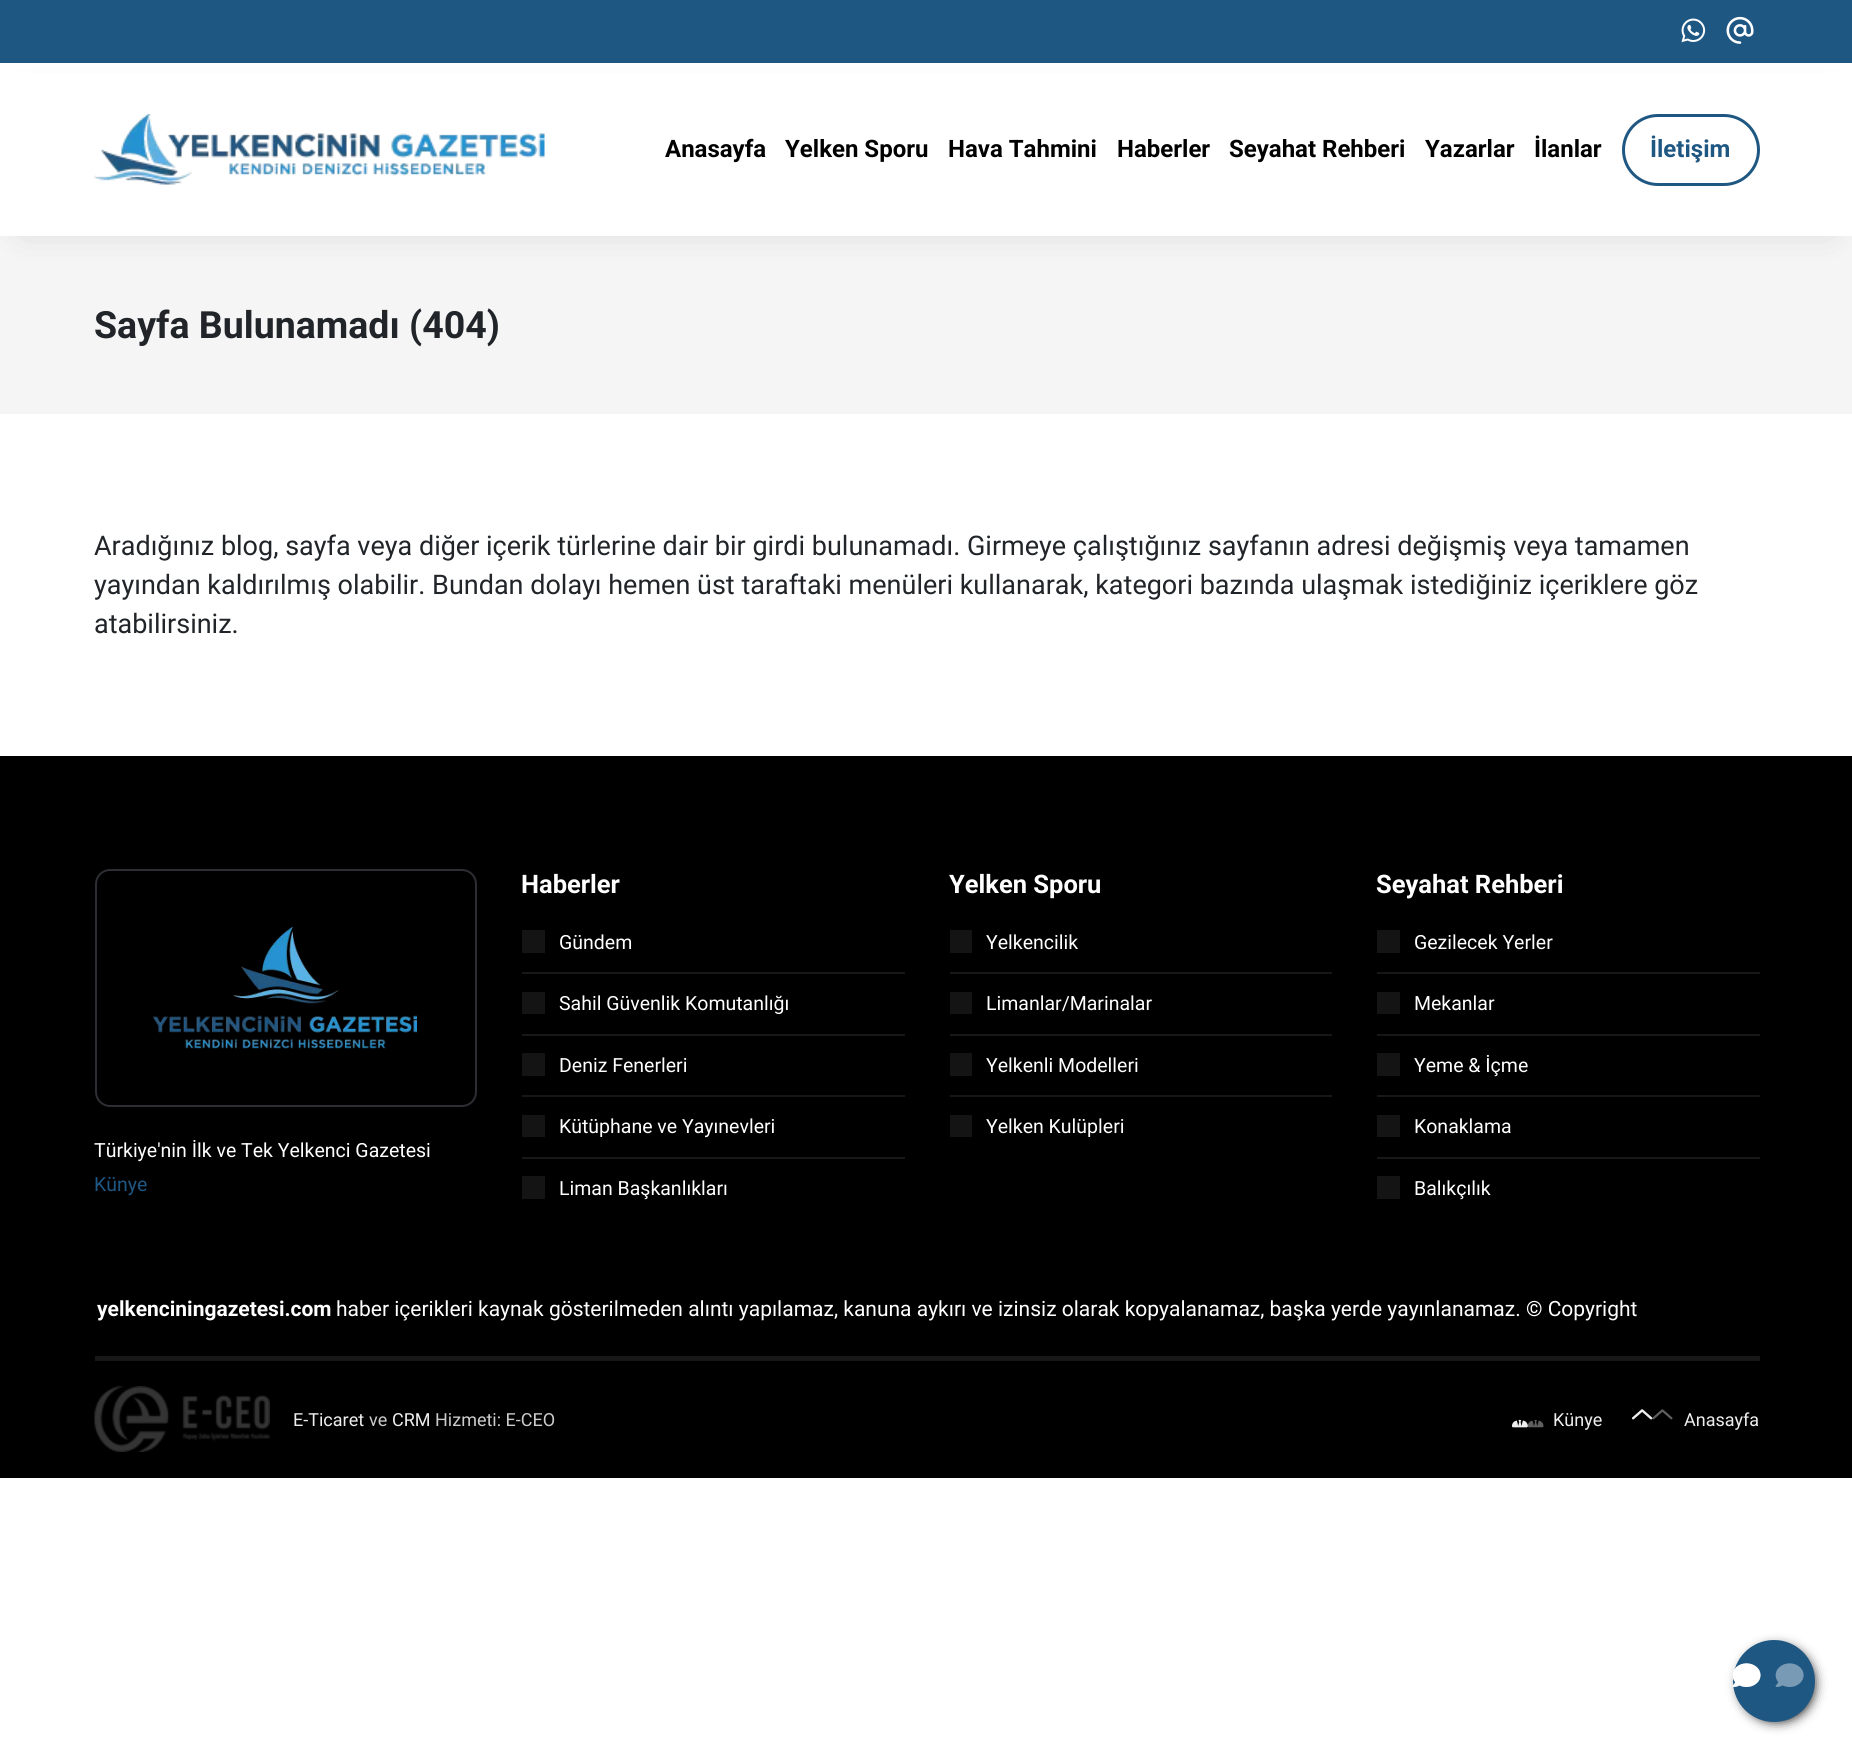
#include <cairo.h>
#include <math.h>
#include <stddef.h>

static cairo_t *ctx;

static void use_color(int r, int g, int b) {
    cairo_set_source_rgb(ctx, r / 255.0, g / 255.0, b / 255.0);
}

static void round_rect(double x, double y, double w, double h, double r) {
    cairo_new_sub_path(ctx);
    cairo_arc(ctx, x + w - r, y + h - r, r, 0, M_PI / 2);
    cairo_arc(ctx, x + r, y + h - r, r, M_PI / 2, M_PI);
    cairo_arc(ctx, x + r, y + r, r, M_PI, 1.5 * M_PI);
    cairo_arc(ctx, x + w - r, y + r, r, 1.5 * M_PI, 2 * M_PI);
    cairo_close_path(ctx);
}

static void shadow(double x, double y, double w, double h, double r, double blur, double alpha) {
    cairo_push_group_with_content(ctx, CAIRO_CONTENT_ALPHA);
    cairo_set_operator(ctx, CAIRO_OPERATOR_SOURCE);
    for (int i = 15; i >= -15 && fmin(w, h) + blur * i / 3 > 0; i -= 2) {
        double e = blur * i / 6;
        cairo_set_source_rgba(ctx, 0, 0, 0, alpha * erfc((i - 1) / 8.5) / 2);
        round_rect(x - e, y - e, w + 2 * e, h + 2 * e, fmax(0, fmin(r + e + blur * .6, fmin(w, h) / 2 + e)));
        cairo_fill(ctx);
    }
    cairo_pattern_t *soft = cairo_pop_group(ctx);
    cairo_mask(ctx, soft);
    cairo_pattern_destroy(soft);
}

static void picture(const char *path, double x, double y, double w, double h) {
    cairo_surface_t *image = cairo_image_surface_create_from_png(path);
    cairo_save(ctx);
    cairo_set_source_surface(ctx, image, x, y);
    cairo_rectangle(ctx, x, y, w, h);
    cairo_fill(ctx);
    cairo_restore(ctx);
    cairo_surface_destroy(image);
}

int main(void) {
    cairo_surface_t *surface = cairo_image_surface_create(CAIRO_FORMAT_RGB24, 1852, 1759);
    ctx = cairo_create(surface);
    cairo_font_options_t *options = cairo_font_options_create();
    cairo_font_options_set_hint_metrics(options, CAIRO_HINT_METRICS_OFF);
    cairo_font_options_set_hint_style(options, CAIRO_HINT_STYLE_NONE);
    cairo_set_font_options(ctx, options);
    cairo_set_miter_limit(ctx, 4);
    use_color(255, 255, 255);
    cairo_paint(ctx);
    use_color(245, 245, 245);
    cairo_rectangle(ctx, 0, 236, 1852, 178);
    cairo_fill(ctx);
    use_color(0, 0, 0);
    shadow(23, 101, 1807, 127, 0, 19, 0.14);
    use_color(31, 87, 131);
    cairo_rectangle(ctx, 0, 0, 1852, 63);
    cairo_fill(ctx);
    picture("img1.png", 1681, 18, 25, 25);
    picture("img2.png", 1726, 16, 28, 28);
    use_color(255, 255, 255);
    cairo_rectangle(ctx, 0, 73, 1852, 163);
    cairo_fill(ctx);
    picture("img3.png", 94, 114, 451, 71);
    cairo_select_font_face(ctx, "Roboto", CAIRO_FONT_SLANT_NORMAL, CAIRO_FONT_WEIGHT_BOLD);
    cairo_set_font_size(ctx, 24);
    use_color(0, 0, 0);
    cairo_move_to(ctx, 665, 157);
    cairo_show_text(ctx, "Anasayfa");
    cairo_move_to(ctx, 785, 157);
    cairo_show_text(ctx, "Yelken Sporu");
    cairo_move_to(ctx, 948, 157);
    cairo_show_text(ctx, "Hava Tahmini");
    cairo_move_to(ctx, 1117, 157);
    cairo_show_text(ctx, "Haberler");
    cairo_move_to(ctx, 1229, 157);
    cairo_show_text(ctx, "Seyahat Rehberi");
    cairo_move_to(ctx, 1425, 157);
    cairo_show_text(ctx, "Yazarlar");
    cairo_move_to(ctx, 1534, 157);
    cairo_show_text(ctx, "İlanlar");
    round_rect(1623.5, 115.5, 135, 69, 34.5);
    use_color(31, 87, 131);
    cairo_set_line_width(ctx, 3);
    cairo_stroke(ctx);
    cairo_move_to(ctx, 1650, 157);
    cairo_show_text(ctx, "İletişim");
    cairo_set_font_size(ctx, 37.5);
    use_color(33, 37, 41);
    cairo_move_to(ctx, 94, 338);
    cairo_show_text(ctx, "Sayfa Bulunamadı (404)");
    cairo_select_font_face(ctx, "Roboto", CAIRO_FONT_SLANT_NORMAL, CAIRO_FONT_WEIGHT_NORMAL);
    cairo_set_font_size(ctx, 27);
    cairo_move_to(ctx, 94, 555);
    cairo_show_text(ctx, "Aradığınız blog, sayfa veya diğer içerik türlerine dair bir girdi bulunamadı. Girmeye çalıştığınız sayfanın adresi değişmiş veya tamamen");
    cairo_move_to(ctx, 94, 594);
    cairo_show_text(ctx, "yayından kaldırılmış olabilir. Bundan dolayı hemen üst taraftaki menüleri kullanarak, kategori bazında ulaşmak istediğiniz içeriklere göz");
    cairo_move_to(ctx, 94, 633);
    cairo_show_text(ctx, "atabilirsiniz.");
    use_color(0, 0, 0);
    cairo_rectangle(ctx, 0, 756, 1852, 722);
    cairo_fill(ctx);
    round_rect(96, 870, 380, 236, 14);
    use_color(44, 46, 51);
    cairo_set_line_width(ctx, 2);
    cairo_stroke(ctx);
    picture("img4.png", 153, 927, 264, 122);
    cairo_set_font_size(ctx, 19.5);
    use_color(255, 255, 255);
    cairo_move_to(ctx, 94, 1157);
    cairo_show_text(ctx, "Türkiye'nin İlk ve Tek Yelkenci Gazetesi");
    use_color(31, 87, 131);
    cairo_move_to(ctx, 94, 1191);
    cairo_show_text(ctx, "Künye");
    cairo_select_font_face(ctx, "Roboto", CAIRO_FONT_SLANT_NORMAL, CAIRO_FONT_WEIGHT_BOLD);
    cairo_set_font_size(ctx, 25.5);
    use_color(255, 255, 255);
    cairo_move_to(ctx, 521, 893);
    cairo_show_text(ctx, "Haberler");
    use_color(23, 23, 24);
    cairo_rectangle(ctx, 522, 972, 383, 2);
    cairo_fill(ctx);
    use_color(20, 20, 21);
    cairo_rectangle(ctx, 522, 930, 23, 23);
    cairo_fill(ctx);
    cairo_select_font_face(ctx, "Roboto", CAIRO_FONT_SLANT_NORMAL, CAIRO_FONT_WEIGHT_NORMAL);
    cairo_set_font_size(ctx, 19.5);
    use_color(255, 255, 255);
    cairo_move_to(ctx, 559, 949);
    cairo_show_text(ctx, "Gündem");
    use_color(23, 23, 24);
    cairo_rectangle(ctx, 522, 1034, 383, 2);
    cairo_fill(ctx);
    use_color(20, 20, 21);
    cairo_rectangle(ctx, 522, 992, 23, 22);
    cairo_fill(ctx);
    use_color(255, 255, 255);
    cairo_move_to(ctx, 559, 1010);
    cairo_show_text(ctx, "Sahil Güvenlik Komutanlığı");
    use_color(23, 23, 24);
    cairo_rectangle(ctx, 522, 1095, 383, 2);
    cairo_fill(ctx);
    use_color(20, 20, 21);
    cairo_rectangle(ctx, 522, 1053, 23, 23);
    cairo_fill(ctx);
    use_color(255, 255, 255);
    cairo_move_to(ctx, 559, 1072);
    cairo_show_text(ctx, "Deniz Fenerleri");
    use_color(23, 23, 24);
    cairo_rectangle(ctx, 522, 1157, 383, 2);
    cairo_fill(ctx);
    use_color(20, 20, 21);
    cairo_rectangle(ctx, 522, 1115, 23, 22);
    cairo_fill(ctx);
    use_color(255, 255, 255);
    cairo_move_to(ctx, 559, 1133);
    cairo_show_text(ctx, "Kütüphane ve Yayınevleri");
    use_color(20, 20, 21);
    cairo_rectangle(ctx, 522, 1176, 23, 23);
    cairo_fill(ctx);
    use_color(255, 255, 255);
    cairo_move_to(ctx, 559, 1195);
    cairo_show_text(ctx, "Liman Başkanlıkları");
    cairo_select_font_face(ctx, "Roboto", CAIRO_FONT_SLANT_NORMAL, CAIRO_FONT_WEIGHT_BOLD);
    cairo_set_font_size(ctx, 25.5);
    cairo_move_to(ctx, 949, 893);
    cairo_show_text(ctx, "Yelken Sporu");
    use_color(23, 23, 24);
    cairo_rectangle(ctx, 950, 972, 382, 2);
    cairo_fill(ctx);
    use_color(20, 20, 21);
    cairo_rectangle(ctx, 950, 930, 22, 23);
    cairo_fill(ctx);
    cairo_select_font_face(ctx, "Roboto", CAIRO_FONT_SLANT_NORMAL, CAIRO_FONT_WEIGHT_NORMAL);
    cairo_set_font_size(ctx, 19.5);
    use_color(255, 255, 255);
    cairo_move_to(ctx, 986, 949);
    cairo_show_text(ctx, "Yelkencilik");
    use_color(23, 23, 24);
    cairo_rectangle(ctx, 950, 1034, 382, 2);
    cairo_fill(ctx);
    use_color(20, 20, 21);
    cairo_rectangle(ctx, 950, 992, 22, 22);
    cairo_fill(ctx);
    use_color(255, 255, 255);
    cairo_move_to(ctx, 986, 1010);
    cairo_show_text(ctx, "Limanlar/Marinalar");
    use_color(23, 23, 24);
    cairo_rectangle(ctx, 950, 1095, 382, 2);
    cairo_fill(ctx);
    use_color(20, 20, 21);
    cairo_rectangle(ctx, 950, 1053, 22, 23);
    cairo_fill(ctx);
    use_color(255, 255, 255);
    cairo_move_to(ctx, 986, 1072);
    cairo_show_text(ctx, "Yelkenli Modelleri");
    use_color(20, 20, 21);
    cairo_rectangle(ctx, 950, 1115, 22, 22);
    cairo_fill(ctx);
    use_color(255, 255, 255);
    cairo_move_to(ctx, 986, 1133);
    cairo_show_text(ctx, "Yelken Kulüpleri");
    cairo_select_font_face(ctx, "Roboto", CAIRO_FONT_SLANT_NORMAL, CAIRO_FONT_WEIGHT_BOLD);
    cairo_set_font_size(ctx, 25.5);
    cairo_move_to(ctx, 1376, 893);
    cairo_show_text(ctx, "Seyahat Rehberi");
    use_color(23, 23, 24);
    cairo_rectangle(ctx, 1377, 972, 383, 2);
    cairo_fill(ctx);
    use_color(20, 20, 21);
    cairo_rectangle(ctx, 1377, 930, 23, 23);
    cairo_fill(ctx);
    cairo_select_font_face(ctx, "Roboto", CAIRO_FONT_SLANT_NORMAL, CAIRO_FONT_WEIGHT_NORMAL);
    cairo_set_font_size(ctx, 19.5);
    use_color(255, 255, 255);
    cairo_move_to(ctx, 1414, 949);
    cairo_show_text(ctx, "Gezilecek Yerler");
    use_color(23, 23, 24);
    cairo_rectangle(ctx, 1377, 1034, 383, 2);
    cairo_fill(ctx);
    use_color(20, 20, 21);
    cairo_rectangle(ctx, 1377, 992, 23, 22);
    cairo_fill(ctx);
    use_color(255, 255, 255);
    cairo_move_to(ctx, 1414, 1010);
    cairo_show_text(ctx, "Mekanlar");
    use_color(23, 23, 24);
    cairo_rectangle(ctx, 1377, 1095, 383, 2);
    cairo_fill(ctx);
    use_color(20, 20, 21);
    cairo_rectangle(ctx, 1377, 1053, 23, 23);
    cairo_fill(ctx);
    use_color(255, 255, 255);
    cairo_move_to(ctx, 1414, 1072);
    cairo_show_text(ctx, "Yeme & İçme");
    use_color(23, 23, 24);
    cairo_rectangle(ctx, 1377, 1157, 383, 2);
    cairo_fill(ctx);
    use_color(20, 20, 21);
    cairo_rectangle(ctx, 1377, 1115, 23, 22);
    cairo_fill(ctx);
    use_color(255, 255, 255);
    cairo_move_to(ctx, 1414, 1133);
    cairo_show_text(ctx, "Konaklama");
    use_color(20, 20, 21);
    cairo_rectangle(ctx, 1377, 1176, 23, 23);
    cairo_fill(ctx);
    use_color(255, 255, 255);
    cairo_move_to(ctx, 1414, 1195);
    cairo_show_text(ctx, "Balıkçılık");
    cairo_select_font_face(ctx, "Roboto", CAIRO_FONT_SLANT_NORMAL, CAIRO_FONT_WEIGHT_BOLD);
    cairo_set_font_size(ctx, 21);
    cairo_move_to(ctx, 97, 1316);
    cairo_show_text(ctx, "yelkenciningazetesi.com");
    cairo_select_font_face(ctx, "Roboto", CAIRO_FONT_SLANT_NORMAL, CAIRO_FONT_WEIGHT_NORMAL);
    cairo_move_to(ctx, 336, 1316);
    cairo_show_text(ctx, "haber içerikleri kaynak gösterilmeden alıntı yapılamaz, kanuna aykırı ve izinsiz olarak kopyalanamaz, başka yerde yayınlanamaz. © Copyright");
    use_color(23, 23, 24);
    cairo_rectangle(ctx, 95, 1356, 1665, 5);
    cairo_fill(ctx);
    picture("img5.png", 94, 1386, 176, 66);
    cairo_set_font_size(ctx, 18);
    use_color(238, 238, 238);
    cairo_move_to(ctx, 293, 1426);
    cairo_show_text(ctx, "E-Ticaret");
    use_color(204, 204, 204);
    cairo_move_to(ctx, 369, 1426);
    cairo_show_text(ctx, "ve");
    use_color(238, 238, 238);
    cairo_move_to(ctx, 392, 1426);
    cairo_show_text(ctx, "CRM");
    use_color(204, 204, 204);
    cairo_move_to(ctx, 435, 1426);
    cairo_show_text(ctx, "Hizmeti: E-CEO");
    picture("img6.png", 1512, 1419, 16, 9);
    picture("img7.png", 1512, 1419, 32, 9);
    use_color(238, 238, 238);
    cairo_move_to(ctx, 1553, 1426);
    cairo_show_text(ctx, "Künye");
    picture("img8.png", 1632, 1409, 21, 11);
    picture("img9.png", 1632, 1409, 41, 11);
    cairo_move_to(ctx, 1684, 1426);
    cairo_show_text(ctx, "Anasayfa");
    use_color(0, 0, 0);
    shadow(1740, 1647, 74, 74, 37, 6, 1);
    use_color(31, 87, 131);
    cairo_arc(ctx, 1774, 1681, 41, 0, 2 * M_PI);
    cairo_fill(ctx);
    picture("img10.png", 1732, 1663, 29, 24);
    picture("img11.png", 1733, 1663, 71, 24);
    cairo_surface_write_to_png(surface, "result.png");
    cairo_font_options_destroy(options);
    cairo_destroy(ctx);
    cairo_surface_destroy(surface);
    return 0;
}
